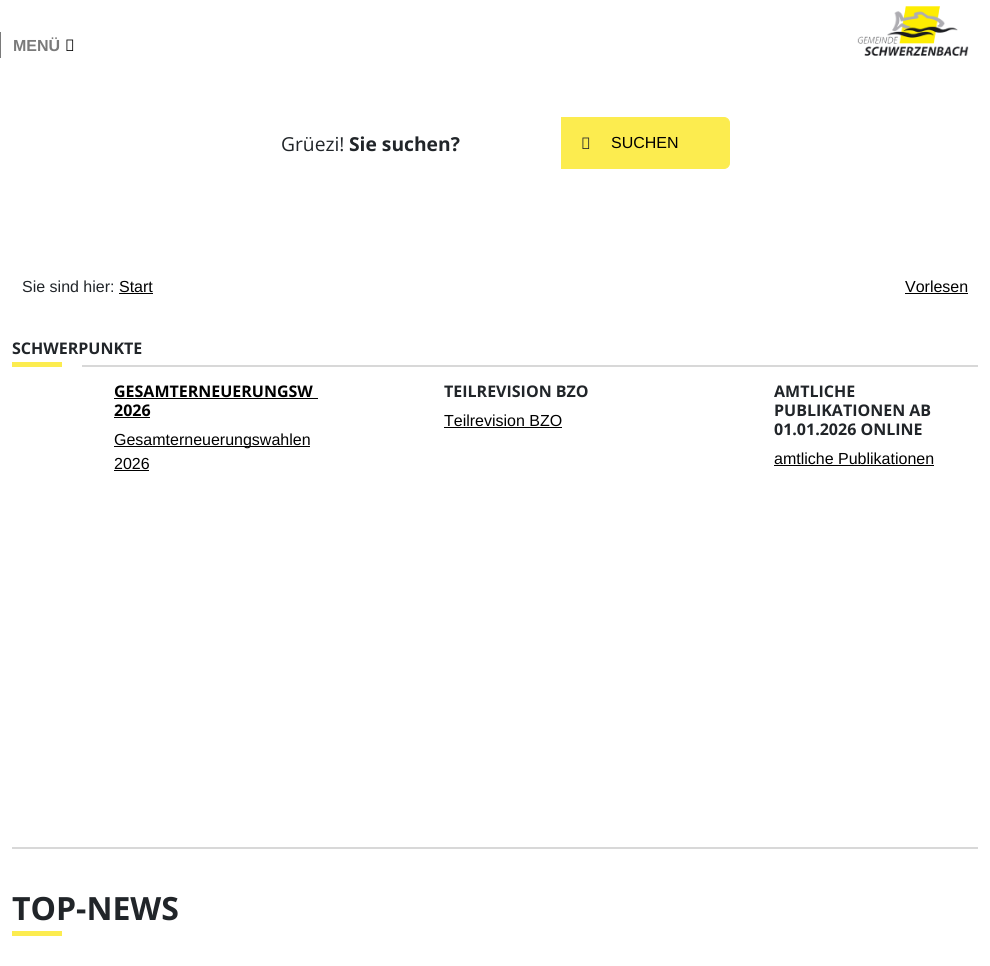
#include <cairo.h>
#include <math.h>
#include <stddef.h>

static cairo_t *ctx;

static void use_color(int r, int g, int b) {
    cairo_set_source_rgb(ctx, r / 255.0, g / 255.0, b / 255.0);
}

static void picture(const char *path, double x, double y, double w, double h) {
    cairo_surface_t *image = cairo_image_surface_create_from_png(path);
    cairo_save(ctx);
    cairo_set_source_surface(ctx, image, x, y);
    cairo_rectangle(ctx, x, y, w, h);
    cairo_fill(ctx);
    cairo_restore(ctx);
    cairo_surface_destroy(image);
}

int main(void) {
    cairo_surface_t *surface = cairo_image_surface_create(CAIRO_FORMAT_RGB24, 990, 966);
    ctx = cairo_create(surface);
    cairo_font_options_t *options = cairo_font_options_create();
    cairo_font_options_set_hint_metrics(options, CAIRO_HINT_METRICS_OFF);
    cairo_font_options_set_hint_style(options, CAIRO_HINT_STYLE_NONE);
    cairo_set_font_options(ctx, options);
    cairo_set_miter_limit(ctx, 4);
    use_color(255, 255, 255);
    cairo_paint(ctx);
    use_color(122, 122, 122);
    cairo_rectangle(ctx, 0, 32, 1, 26);
    cairo_fill(ctx);
    cairo_select_font_face(ctx, "Liberation Sans", CAIRO_FONT_SLANT_NORMAL, CAIRO_FONT_WEIGHT_BOLD);
    cairo_set_font_size(ctx, 16);
    cairo_move_to(ctx, 13, 51);
    cairo_show_text(ctx, "MENÜ");
    picture("img1.png", 66, 39, 8, 12);
    picture("img2.png", 857, 6, 112, 50);
    cairo_select_font_face(ctx, "Open Sans", CAIRO_FONT_SLANT_NORMAL, CAIRO_FONT_WEIGHT_NORMAL);
    cairo_set_font_size(ctx, 19.25);
    use_color(33, 37, 41);
    cairo_move_to(ctx, 281, 151);
    cairo_show_text(ctx, "Grüezi!");
    cairo_select_font_face(ctx, "Open Sans", CAIRO_FONT_SLANT_NORMAL, CAIRO_FONT_WEIGHT_BOLD);
    cairo_move_to(ctx, 349, 151);
    cairo_show_text(ctx, "Sie suchen?");
    use_color(252, 236, 79);
    cairo_new_path(ctx);
    cairo_move_to(ctx, 561.5, 117.5);
    cairo_line_to(ctx, 724, 117.5);
    cairo_curve_to(ctx, 727, 117.5, 729.5, 120, 729.5, 123);
    cairo_line_to(ctx, 729.5, 163);
    cairo_curve_to(ctx, 729.5, 166, 727, 168.5, 724, 168.5);
    cairo_line_to(ctx, 561.5, 168.5);
    cairo_close_path(ctx);
    cairo_fill_preserve(ctx);
    cairo_set_line_width(ctx, 1);
    cairo_stroke(ctx);
    picture("img3.png", 582, 137, 8, 12);
    cairo_select_font_face(ctx, "Liberation Sans", CAIRO_FONT_SLANT_NORMAL, CAIRO_FONT_WEIGHT_NORMAL);
    cairo_set_font_size(ctx, 16);
    use_color(0, 0, 0);
    cairo_move_to(ctx, 611, 148);
    cairo_show_text(ctx, "SUCHEN");
    use_color(33, 37, 41);
    cairo_move_to(ctx, 22, 292);
    cairo_show_text(ctx, "Sie sind hier:");
    use_color(0, 0, 0);
    cairo_move_to(ctx, 119, 292);
    cairo_show_text(ctx, "Start");
    cairo_rectangle(ctx, 119, 293, 34, 1);
    cairo_fill(ctx);
    cairo_move_to(ctx, 905, 292);
    cairo_show_text(ctx, "Vorlesen");
    cairo_rectangle(ctx, 905, 293, 63, 1);
    cairo_fill(ctx);
    cairo_select_font_face(ctx, "Open Sans", CAIRO_FONT_SLANT_NORMAL, CAIRO_FONT_WEIGHT_BOLD);
    use_color(33, 37, 41);
    cairo_move_to(ctx, 12, 354);
    cairo_show_text(ctx, "SCHWERPUNKTE");
    use_color(216, 216, 216);
    cairo_rectangle(ctx, 82, 365, 896, 2);
    cairo_fill(ctx);
    use_color(252, 236, 79);
    cairo_rectangle(ctx, 12, 362, 50, 5);
    cairo_fill(ctx);
    use_color(0, 0, 0);
    cairo_move_to(ctx, 114, 397);
    cairo_show_text(ctx, "GESAMTERNEUERUNGSW");
    cairo_rectangle(ctx, 114, 398, 204, 1);
    cairo_fill(ctx);
    cairo_move_to(ctx, 114, 416);
    cairo_show_text(ctx, "2026");
    cairo_rectangle(ctx, 114, 417, 36, 1);
    cairo_fill(ctx);
    cairo_rectangle(ctx, 114, 446, 196, 1);
    cairo_fill(ctx);
    cairo_select_font_face(ctx, "Liberation Sans", CAIRO_FONT_SLANT_NORMAL, CAIRO_FONT_WEIGHT_NORMAL);
    cairo_move_to(ctx, 114, 445);
    cairo_show_text(ctx, "Gesamterneuerungswahlen");
    cairo_move_to(ctx, 114, 469);
    cairo_show_text(ctx, "2026");
    cairo_rectangle(ctx, 114, 470, 35, 1);
    cairo_fill(ctx);
    cairo_select_font_face(ctx, "Open Sans", CAIRO_FONT_SLANT_NORMAL, CAIRO_FONT_WEIGHT_BOLD);
    use_color(33, 37, 41);
    cairo_move_to(ctx, 444, 397);
    cairo_show_text(ctx, "TEILREVISION BZO");
    cairo_select_font_face(ctx, "Liberation Sans", CAIRO_FONT_SLANT_NORMAL, CAIRO_FONT_WEIGHT_NORMAL);
    use_color(0, 0, 0);
    cairo_move_to(ctx, 444, 426);
    cairo_show_text(ctx, "Teilrevision BZO");
    cairo_rectangle(ctx, 444, 427, 118, 1);
    cairo_fill(ctx);
    cairo_select_font_face(ctx, "Open Sans", CAIRO_FONT_SLANT_NORMAL, CAIRO_FONT_WEIGHT_BOLD);
    use_color(33, 37, 41);
    cairo_move_to(ctx, 774, 397);
    cairo_show_text(ctx, "AMTLICHE");
    cairo_move_to(ctx, 774, 416);
    cairo_show_text(ctx, "PUBLIKATIONEN AB");
    cairo_move_to(ctx, 774, 435);
    cairo_show_text(ctx, "01.01.2026 ONLINE");
    cairo_select_font_face(ctx, "Liberation Sans", CAIRO_FONT_SLANT_NORMAL, CAIRO_FONT_WEIGHT_NORMAL);
    use_color(0, 0, 0);
    cairo_move_to(ctx, 774, 464);
    cairo_show_text(ctx, "amtliche Publikationen");
    cairo_rectangle(ctx, 774, 465, 160, 1);
    cairo_fill(ctx);
    use_color(216, 216, 216);
    cairo_rectangle(ctx, 12, 847, 966, 2);
    cairo_fill(ctx);
    cairo_select_font_face(ctx, "Open Sans", CAIRO_FONT_SLANT_NORMAL, CAIRO_FONT_WEIGHT_BOLD);
    cairo_set_font_size(ctx, 32);
    use_color(33, 37, 41);
    cairo_move_to(ctx, 12, 920);
    cairo_show_text(ctx, "TOP-NEWS");
    use_color(252, 236, 79);
    cairo_rectangle(ctx, 12, 931, 50, 5);
    cairo_fill(ctx);
    cairo_surface_write_to_png(surface, "result.png");
    cairo_font_options_destroy(options);
    cairo_destroy(ctx);
    cairo_surface_destroy(surface);
    return 0;
}
